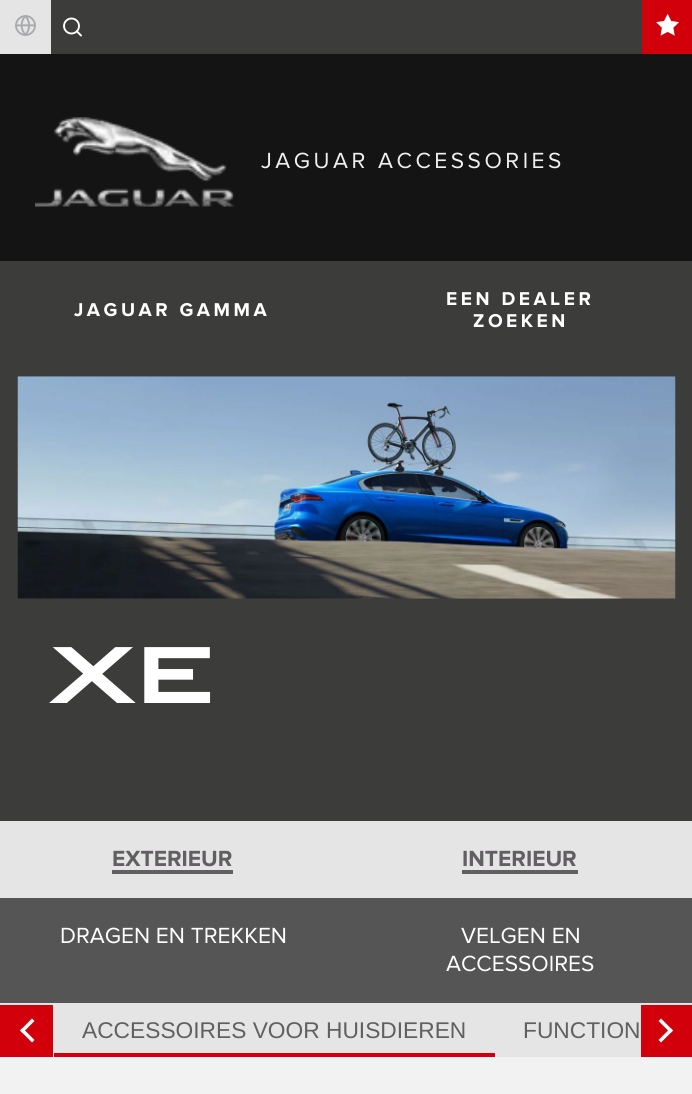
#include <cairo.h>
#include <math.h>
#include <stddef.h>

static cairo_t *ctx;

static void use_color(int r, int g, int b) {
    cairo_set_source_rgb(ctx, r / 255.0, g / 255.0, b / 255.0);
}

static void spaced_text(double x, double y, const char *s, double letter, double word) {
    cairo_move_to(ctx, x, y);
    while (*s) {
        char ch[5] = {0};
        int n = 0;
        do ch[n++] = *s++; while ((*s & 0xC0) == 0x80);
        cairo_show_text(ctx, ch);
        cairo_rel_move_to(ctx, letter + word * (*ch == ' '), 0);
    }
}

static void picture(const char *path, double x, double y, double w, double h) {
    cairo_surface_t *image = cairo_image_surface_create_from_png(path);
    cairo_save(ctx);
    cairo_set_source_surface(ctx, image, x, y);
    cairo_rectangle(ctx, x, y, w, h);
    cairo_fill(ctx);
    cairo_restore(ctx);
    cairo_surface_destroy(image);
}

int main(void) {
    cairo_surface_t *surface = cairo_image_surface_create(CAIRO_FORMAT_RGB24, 692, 1094);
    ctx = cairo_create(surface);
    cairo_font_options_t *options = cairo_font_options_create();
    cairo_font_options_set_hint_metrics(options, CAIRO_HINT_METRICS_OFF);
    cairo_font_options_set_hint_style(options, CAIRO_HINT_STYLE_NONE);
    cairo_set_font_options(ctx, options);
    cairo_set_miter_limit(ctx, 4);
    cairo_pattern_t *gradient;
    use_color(20, 20, 20);
    cairo_paint(ctx);
    use_color(60, 60, 59);
    cairo_rectangle(ctx, 51, 0, 591, 54);
    cairo_fill(ctx);
    use_color(229, 229, 229);
    cairo_rectangle(ctx, 0, 0, 51, 54);
    cairo_fill(ctx);
    picture("img1.png", 15, 15, 21, 21);
    cairo_arc(ctx, 71.5, 26, 7.5, 0, 2 * M_PI);
    use_color(255, 255, 255);
    cairo_set_line_width(ctx, 1.9);
    cairo_stroke(ctx);
    cairo_new_path(ctx);
    cairo_move_to(ctx, 81, 35.5);
    cairo_line_to(ctx, 77, 31.5);
    cairo_set_line_cap(ctx, CAIRO_LINE_CAP_ROUND);
    cairo_set_line_join(ctx, CAIRO_LINE_JOIN_ROUND);
    cairo_stroke(ctx);
    use_color(210, 0, 10);
    cairo_rectangle(ctx, 642, 0, 50, 54);
    cairo_fill(ctx);
    picture("img2.png", 656, 14, 23, 22);
    picture("img3.png", 35, 117, 200, 90);
    cairo_select_font_face(ctx, "Proxima Nova", CAIRO_FONT_SLANT_NORMAL, CAIRO_FONT_WEIGHT_NORMAL);
    cairo_set_font_size(ctx, 22.75);
    use_color(240, 240, 240);
    spaced_text(261, 168, "JAGUAR ACCESSORIES", 3.5, 0);
    use_color(60, 60, 59);
    cairo_rectangle(ctx, 0, 261, 692, 560);
    cairo_fill(ctx);
    cairo_select_font_face(ctx, "Proxima Nova", CAIRO_FONT_SLANT_NORMAL, CAIRO_FONT_WEIGHT_BOLD);
    cairo_set_font_size(ctx, 19.25);
    use_color(255, 255, 255);
    spaced_text(74, 316, "JAGUAR GAMMA", 3.5, 0);
    spaced_text(446, 305, "EEN DEALER", 3.5, 0);
    spaced_text(473, 327, "ZOEKEN", 3.5, 0);
    picture("img4.png", 17, 376, 659, 223);
    cairo_select_font_face(ctx, "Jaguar", CAIRO_FONT_SLANT_NORMAL, CAIRO_FONT_WEIGHT_BOLD);
    cairo_set_font_size(ctx, 77);
    cairo_move_to(ctx, 48, 703);
    cairo_show_text(ctx, "XE");
    use_color(85, 85, 85);
    cairo_rectangle(ctx, 0, 898, 692, 105);
    cairo_fill(ctx);
    use_color(229, 229, 229);
    cairo_rectangle(ctx, 0, 821, 692, 77);
    cairo_fill(ctx);
    cairo_select_font_face(ctx, "Proxima Nova", CAIRO_FONT_SLANT_NORMAL, CAIRO_FONT_WEIGHT_BOLD);
    cairo_set_font_size(ctx, 22.75);
    use_color(97, 95, 97);
    cairo_move_to(ctx, 112, 866);
    cairo_show_text(ctx, "EXTERIEUR");
    cairo_rectangle(ctx, 112, 870, 121, 4);
    cairo_fill(ctx);
    cairo_move_to(ctx, 462, 866);
    cairo_show_text(ctx, "INTERIEUR");
    cairo_rectangle(ctx, 462, 870, 116, 4);
    cairo_fill(ctx);
    cairo_select_font_face(ctx, "Proxima Nova", CAIRO_FONT_SLANT_NORMAL, CAIRO_FONT_WEIGHT_NORMAL);
    use_color(255, 255, 255);
    cairo_move_to(ctx, 60, 943);
    cairo_show_text(ctx, "DRAGEN EN TREKKEN");
    cairo_move_to(ctx, 461, 943);
    cairo_show_text(ctx, "VELGEN EN");
    cairo_move_to(ctx, 446, 971);
    cairo_show_text(ctx, "ACCESSOIRES");
    use_color(229, 229, 229);
    cairo_rectangle(ctx, 0, 1003, 692, 54);
    cairo_fill(ctx);
    use_color(210, 0, 10);
    cairo_rectangle(ctx, 0, 1005, 53, 52);
    cairo_fill(ctx);
    use_color(255, 255, 255);
    cairo_new_path(ctx);
    cairo_move_to(ctx, 22.5, 1028);
    cairo_line_to(ctx, 34.5, 1040);
    cairo_line_to(ctx, 32, 1042.5);
    cairo_line_to(ctx, 20, 1030.5);
    cairo_close_path(ctx);
    cairo_fill(ctx);
    cairo_new_path(ctx);
    cairo_move_to(ctx, 32, 1018.5);
    cairo_line_to(ctx, 34.5, 1021);
    cairo_line_to(ctx, 22.5, 1033);
    cairo_line_to(ctx, 20, 1030.5);
    cairo_close_path(ctx);
    cairo_fill(ctx);
    use_color(210, 0, 10);
    cairo_rectangle(ctx, 641, 1005, 51, 52);
    cairo_fill(ctx);
    use_color(255, 255, 255);
    cairo_new_path(ctx);
    cairo_move_to(ctx, 661, 1018.5);
    cairo_line_to(ctx, 673, 1030.5);
    cairo_line_to(ctx, 670.5, 1033);
    cairo_line_to(ctx, 658.5, 1021);
    cairo_close_path(ctx);
    cairo_fill(ctx);
    cairo_new_path(ctx);
    cairo_move_to(ctx, 670.5, 1028);
    cairo_line_to(ctx, 673, 1030.5);
    cairo_line_to(ctx, 661, 1042.5);
    cairo_line_to(ctx, 658.5, 1040);
    cairo_close_path(ctx);
    cairo_fill(ctx);
    gradient = cairo_pattern_create_linear(275, 1003, 275, 1057);
    cairo_pattern_add_color_stop_rgba(gradient, 0, 0.898, 0.898, 0.898, 1);
    cairo_pattern_add_color_stop_rgba(gradient, 0.92, 0.898, 0.898, 0.898, 1);
    cairo_pattern_add_color_stop_rgba(gradient, 0.92, 0.824, 0, 0.039, 1);
    cairo_pattern_add_color_stop_rgba(gradient, 1, 0.824, 0, 0.039, 1);
    cairo_set_source(ctx, gradient);
    cairo_pattern_destroy(gradient);
    cairo_rectangle(ctx, 54, 1053, 441, 4);
    cairo_fill(ctx);
    cairo_select_font_face(ctx, "Liberation Sans", CAIRO_FONT_SLANT_NORMAL, CAIRO_FONT_WEIGHT_NORMAL);
    use_color(97, 95, 97);
    cairo_move_to(ctx, 82, 1038);
    cairo_show_text(ctx, "ACCESSOIRES VOOR HUISDIEREN");
    cairo_move_to(ctx, 523, 1038);
    cairo_show_text(ctx, "FUNCTION");
    use_color(242, 242, 242);
    cairo_rectangle(ctx, 0, 1057, 692, 37);
    cairo_fill(ctx);
    cairo_surface_write_to_png(surface, "result.png");
    cairo_font_options_destroy(options);
    cairo_destroy(ctx);
    cairo_surface_destroy(surface);
    return 0;
}
